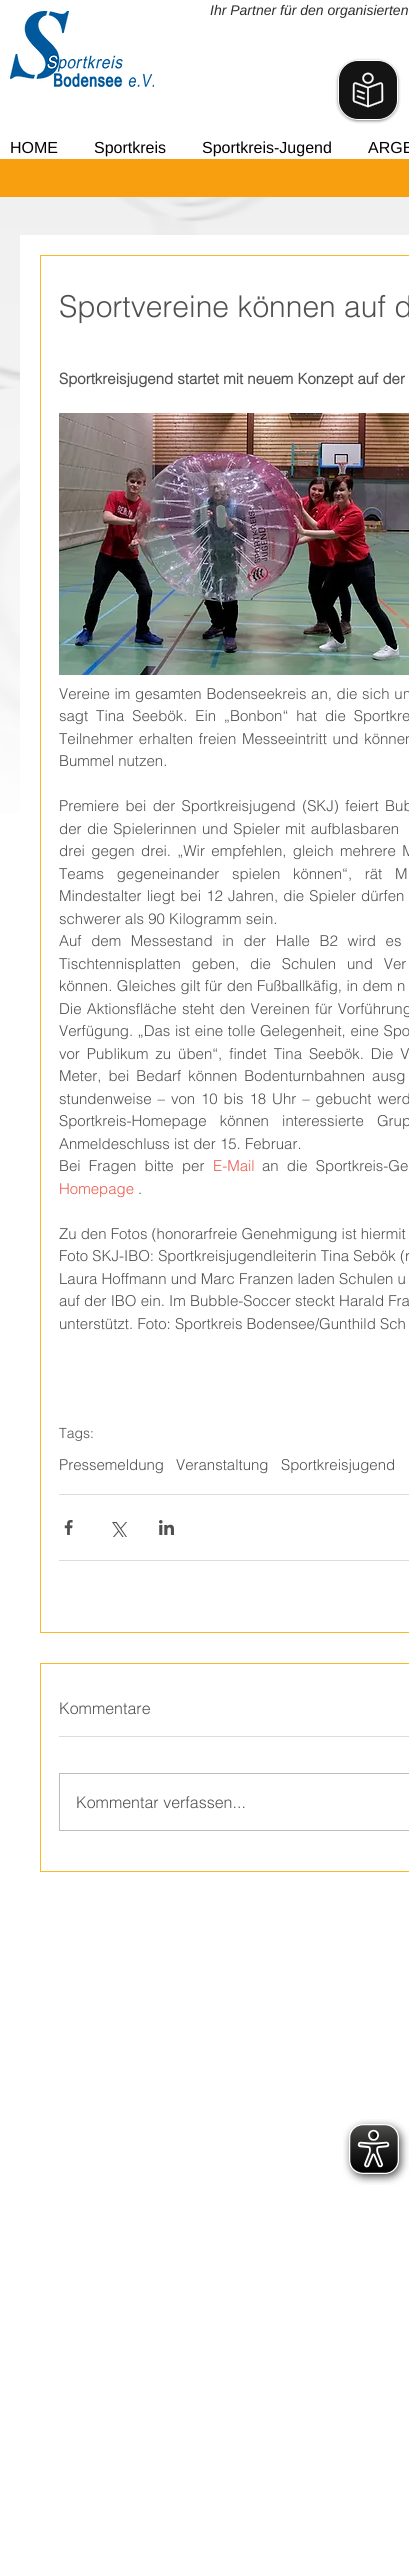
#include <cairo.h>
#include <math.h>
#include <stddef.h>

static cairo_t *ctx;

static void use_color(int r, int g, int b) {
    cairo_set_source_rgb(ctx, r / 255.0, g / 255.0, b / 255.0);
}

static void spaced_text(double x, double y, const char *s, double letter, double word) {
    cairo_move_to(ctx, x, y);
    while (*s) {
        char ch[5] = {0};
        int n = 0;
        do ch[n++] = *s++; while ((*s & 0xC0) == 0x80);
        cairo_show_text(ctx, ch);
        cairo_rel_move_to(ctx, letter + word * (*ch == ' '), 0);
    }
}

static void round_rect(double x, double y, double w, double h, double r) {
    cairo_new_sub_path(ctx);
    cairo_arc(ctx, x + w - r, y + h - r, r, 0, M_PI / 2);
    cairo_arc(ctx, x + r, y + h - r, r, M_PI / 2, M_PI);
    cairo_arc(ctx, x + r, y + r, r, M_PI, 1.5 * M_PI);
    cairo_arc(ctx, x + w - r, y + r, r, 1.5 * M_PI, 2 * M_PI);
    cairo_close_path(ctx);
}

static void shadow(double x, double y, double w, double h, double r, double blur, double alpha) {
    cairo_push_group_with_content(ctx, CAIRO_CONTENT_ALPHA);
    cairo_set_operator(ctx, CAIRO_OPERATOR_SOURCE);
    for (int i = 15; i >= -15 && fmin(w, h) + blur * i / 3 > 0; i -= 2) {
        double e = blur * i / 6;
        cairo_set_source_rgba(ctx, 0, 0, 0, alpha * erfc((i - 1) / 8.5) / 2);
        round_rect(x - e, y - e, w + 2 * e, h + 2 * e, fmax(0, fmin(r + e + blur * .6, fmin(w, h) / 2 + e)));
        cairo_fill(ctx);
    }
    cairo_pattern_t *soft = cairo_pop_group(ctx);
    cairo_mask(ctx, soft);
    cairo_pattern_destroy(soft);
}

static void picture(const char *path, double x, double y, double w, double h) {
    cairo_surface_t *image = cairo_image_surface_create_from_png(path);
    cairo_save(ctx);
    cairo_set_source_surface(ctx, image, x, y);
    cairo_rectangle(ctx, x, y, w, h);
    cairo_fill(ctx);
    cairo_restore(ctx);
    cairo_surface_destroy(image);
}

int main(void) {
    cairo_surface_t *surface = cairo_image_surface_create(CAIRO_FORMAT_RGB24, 409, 2558);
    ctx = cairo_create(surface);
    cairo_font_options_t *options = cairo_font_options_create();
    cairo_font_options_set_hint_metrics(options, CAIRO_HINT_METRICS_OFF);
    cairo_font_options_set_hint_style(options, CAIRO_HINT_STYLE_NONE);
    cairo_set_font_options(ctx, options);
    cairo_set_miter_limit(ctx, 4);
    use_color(255, 255, 255);
    cairo_paint(ctx);
    picture("img1.png", 10, 11, 144, 76);
    cairo_select_font_face(ctx, "Liberation Sans", CAIRO_FONT_SLANT_ITALIC, CAIRO_FONT_WEIGHT_NORMAL);
    cairo_set_font_size(ctx, 14);
    use_color(47, 46, 46);
    cairo_move_to(ctx, 210, 15);
    cairo_show_text(ctx, "Ihr Partner für den organisierten");
    cairo_select_font_face(ctx, "Liberation Sans", CAIRO_FONT_SLANT_NORMAL, CAIRO_FONT_WEIGHT_NORMAL);
    cairo_set_font_size(ctx, 16);
    use_color(0, 0, 0);
    cairo_move_to(ctx, 10, 153);
    cairo_show_text(ctx, "HOME");
    cairo_move_to(ctx, 94, 153);
    cairo_show_text(ctx, "Sportkreis");
    cairo_move_to(ctx, 202, 153);
    cairo_show_text(ctx, "Sportkreis-Jugend");
    cairo_move_to(ctx, 368, 153);
    cairo_show_text(ctx, "ARGE");
    use_color(247, 159, 15);
    cairo_rectangle(ctx, 0, 159, 409, 38);
    cairo_fill(ctx);
    picture("img6.png", 0, 197, 409, 616);
    use_color(255, 255, 255);
    cairo_rectangle(ctx, 20, 235, 389, 578);
    cairo_fill(ctx);
    cairo_rectangle(ctx, 40.5, 255.5, 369, 1377);
    use_color(250, 187, 32);
    cairo_set_line_width(ctx, 1);
    cairo_stroke(ctx);
    cairo_select_font_face(ctx, "helvetica Light", CAIRO_FONT_SLANT_NORMAL, CAIRO_FONT_WEIGHT_NORMAL);
    cairo_set_font_size(ctx, 30);
    use_color(80, 80, 80);
    cairo_move_to(ctx, 59, 317);
    cairo_show_text(ctx, "Sportvereine können auf d");
    cairo_select_font_face(ctx, "helvetica", CAIRO_FONT_SLANT_NORMAL, CAIRO_FONT_WEIGHT_BOLD);
    cairo_set_font_size(ctx, 15);
    cairo_move_to(ctx, 59, 384);
    cairo_show_text(ctx, "Sportkreisjugend startet mit neuem Konzept auf der");
    picture("img2.png", 59, 413, 350, 262);
    cairo_select_font_face(ctx, "helvetica Light", CAIRO_FONT_SLANT_NORMAL, CAIRO_FONT_WEIGHT_NORMAL);
    spaced_text(59, 699, "Vereine im gesamten Bodenseekreis an, die sich un", 0, 0.5);
    spaced_text(59, 721, "sagt Tina Seebök. Ein „Bonbon“ hat die Sportkre", 0, 3.75);
    spaced_text(59, 744, "Teilnehmer erhalten freien Messeeintritt und können", 0, 1.5);
    cairo_move_to(ctx, 59, 766);
    cairo_show_text(ctx, "Bummel nutzen.");
    spaced_text(59, 811, "Premiere bei der Sportkreisjugend (SKJ) feiert Bub", 0, 2.25);
    spaced_text(59, 834, "der die Spielerinnen und Spieler mit aufblasbaren", 0, 1.25);
    spaced_text(59, 856, "drei gegen drei. „Wir empfehlen, gleich mehrere M", 0, 2.25);
    spaced_text(59, 879, "Teams gegeneinander spielen können“, rät M", 0, 8.5);
    spaced_text(59, 901, "Mindestalter liegt bei 12 Jahren, die Spieler dürfen", 0, 1);
    cairo_move_to(ctx, 59, 924);
    cairo_show_text(ctx, "schwerer als 90 Kilogramm sein.");
    spaced_text(59, 946, "Auf dem Messestand in der Halle B2 wird es", 0, 5.5);
    spaced_text(59, 969, "Tischtennisplatten geben, die Schulen und Ver", 0, 6.75);
    spaced_text(59, 991, "können. Gleiches gilt für den Fußballkäfig, in dem n", 0, 0.25);
    spaced_text(59, 1014, "Die Aktionsfläche steht den Vereinen für Vorführung", 0, 1);
    spaced_text(59, 1036, "Verfügung. „Das ist eine tolle Gelegenheit, eine Spo", 0, 0.5);
    spaced_text(59, 1059, "vor Publikum zu üben“, findet Tina Seebök. Die V", 0, 2.75);
    spaced_text(59, 1081, "Meter, bei Bedarf können Bodenturnbahnen ausg", 0, 2.75);
    spaced_text(59, 1104, "stundenweise – von 10 bis 18 Uhr – gebucht werd", 0, 1.75);
    spaced_text(59, 1126, "Sportkreis-Homepage können interessierte Grup", 0, 9);
    cairo_move_to(ctx, 59, 1149);
    cairo_show_text(ctx, "Anmeldeschluss ist der 15. Februar.");
    spaced_text(59, 1171, "Bei Fragen bitte per", 0, 4);
    use_color(237, 89, 76);
    cairo_move_to(ctx, 213, 1171);
    cairo_show_text(ctx, "E-Mail");
    use_color(80, 80, 80);
    spaced_text(262, 1171, "an die Sportkreis-Ge", 0, 4);
    use_color(237, 89, 76);
    cairo_move_to(ctx, 59, 1194);
    cairo_show_text(ctx, "Homepage");
    use_color(80, 80, 80);
    cairo_move_to(ctx, 138, 1194);
    cairo_show_text(ctx, ".");
    cairo_move_to(ctx, 59, 1239);
    cairo_show_text(ctx, "Zu den Fotos (honorarfreie Genehmigung ist hiermit");
    cairo_move_to(ctx, 59, 1261);
    cairo_show_text(ctx, "Foto SKJ-IBO: Sportkreisjugendleiterin Tina Sebök (r");
    cairo_move_to(ctx, 59, 1284);
    cairo_show_text(ctx, "Laura Hoffmann und Marc Franzen laden Schulen u");
    cairo_move_to(ctx, 59, 1306);
    cairo_show_text(ctx, "auf der IBO ein. Im Bubble-Soccer steckt Harald Fra");
    cairo_move_to(ctx, 59, 1329);
    cairo_show_text(ctx, "unterstützt. Foto: Sportkreis Bodensee/Gunthild Sch");
    cairo_set_font_size(ctx, 14);
    cairo_move_to(ctx, 59, 1438);
    cairo_show_text(ctx, "Tags:");
    cairo_set_font_size(ctx, 15);
    cairo_move_to(ctx, 59, 1470);
    cairo_show_text(ctx, "Pressemeldung");
    cairo_move_to(ctx, 176, 1470);
    cairo_show_text(ctx, "Veranstaltung");
    cairo_move_to(ctx, 281, 1470);
    cairo_show_text(ctx, "Sportkreisjugend");
    use_color(220, 220, 220);
    cairo_rectangle(ctx, 59, 1494, 350, 1);
    cairo_fill(ctx);
    picture("img3.png", 64, 1520, 9, 15);
    picture("img4.png", 112, 1522, 15, 15);
    picture("img5.png", 159, 1520, 15, 15);
    cairo_rectangle(ctx, 59, 1560, 350, 1);
    cairo_fill(ctx);
    cairo_rectangle(ctx, 40.5, 1663.5, 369, 208);
    use_color(250, 187, 32);
    cairo_stroke(ctx);
    cairo_set_font_size(ctx, 16);
    use_color(80, 80, 80);
    cairo_move_to(ctx, 59, 1714);
    cairo_show_text(ctx, "Kommentare");
    use_color(220, 220, 220);
    cairo_rectangle(ctx, 59, 1736, 350, 1);
    cairo_fill(ctx);
    cairo_rectangle(ctx, 59.5, 1773.5, 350, 57);
    use_color(188, 189, 189);
    cairo_stroke(ctx);
    use_color(80, 80, 80);
    cairo_move_to(ctx, 76, 1808);
    cairo_show_text(ctx, "Kommentar verfassen...");
    use_color(132, 132, 132);
    shadow(338, 61, 60, 60, 20, 1.5, 1);
    use_color(21, 20, 20);
    round_rect(338.5, 60.5, 59, 59, 19.5);
    cairo_fill_preserve(ctx);
    use_color(255, 255, 255);
    cairo_stroke(ctx);
    picture("img7.png", 352, 72, 32, 36);
    picture("img8.png", 343, 2119, 66, 66);
    cairo_surface_write_to_png(surface, "result.png");
    cairo_font_options_destroy(options);
    cairo_destroy(ctx);
    cairo_surface_destroy(surface);
    return 0;
}
